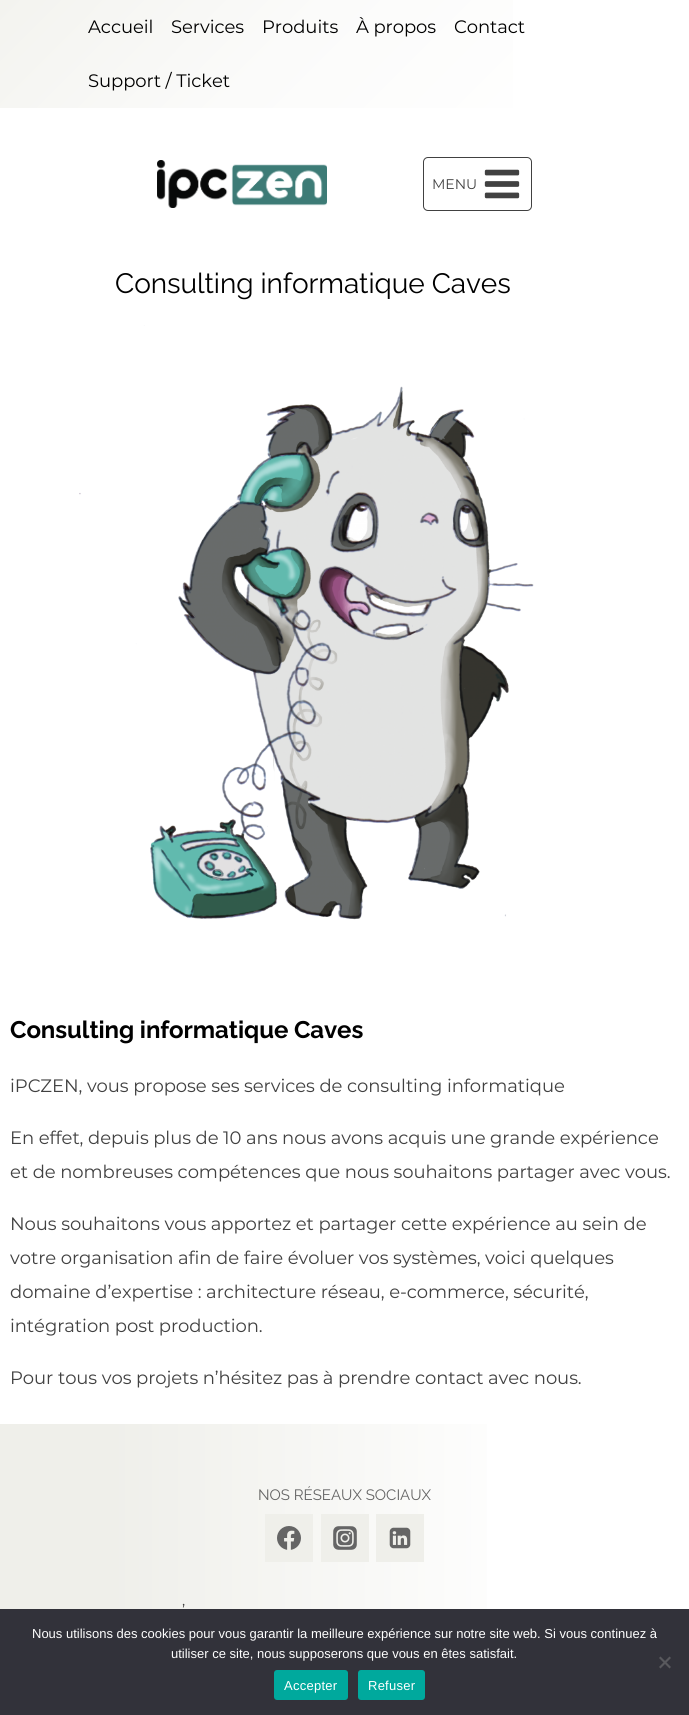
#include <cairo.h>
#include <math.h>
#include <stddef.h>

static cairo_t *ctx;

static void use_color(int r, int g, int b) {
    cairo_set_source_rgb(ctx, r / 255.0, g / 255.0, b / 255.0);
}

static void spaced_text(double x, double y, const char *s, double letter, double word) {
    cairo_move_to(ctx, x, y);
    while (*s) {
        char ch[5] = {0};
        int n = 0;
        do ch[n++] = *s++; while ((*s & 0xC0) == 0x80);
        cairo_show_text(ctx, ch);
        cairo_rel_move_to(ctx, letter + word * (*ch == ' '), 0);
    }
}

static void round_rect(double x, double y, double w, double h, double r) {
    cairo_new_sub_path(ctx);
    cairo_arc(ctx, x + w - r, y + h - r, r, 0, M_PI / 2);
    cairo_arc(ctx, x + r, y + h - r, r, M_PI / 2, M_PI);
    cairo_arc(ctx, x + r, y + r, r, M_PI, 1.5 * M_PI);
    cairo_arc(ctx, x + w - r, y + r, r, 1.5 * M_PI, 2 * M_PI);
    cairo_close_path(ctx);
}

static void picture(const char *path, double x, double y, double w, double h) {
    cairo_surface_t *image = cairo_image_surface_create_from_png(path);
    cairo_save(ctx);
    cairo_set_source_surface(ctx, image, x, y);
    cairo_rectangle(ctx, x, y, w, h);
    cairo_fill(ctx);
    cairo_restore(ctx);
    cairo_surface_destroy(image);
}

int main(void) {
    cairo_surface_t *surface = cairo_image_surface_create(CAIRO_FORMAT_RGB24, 689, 1715);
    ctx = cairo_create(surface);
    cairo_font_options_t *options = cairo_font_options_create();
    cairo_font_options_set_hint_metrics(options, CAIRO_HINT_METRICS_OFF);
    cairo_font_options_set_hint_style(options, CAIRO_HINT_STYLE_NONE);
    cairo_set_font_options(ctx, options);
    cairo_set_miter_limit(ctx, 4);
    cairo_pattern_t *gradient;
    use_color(255, 255, 255);
    cairo_paint(ctx);
    gradient = cairo_pattern_create_linear(145, -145, 544, 253);
    cairo_pattern_add_color_stop_rgba(gradient, 0, 0.953, 0.953, 0.937, 1);
    cairo_pattern_add_color_stop_rgba(gradient, 0.41, 0.984, 0.984, 0.98, 1);
    cairo_pattern_add_color_stop_rgba(gradient, 0.88, 1, 1, 1, 1);
    cairo_set_source(ctx, gradient);
    cairo_pattern_destroy(gradient);
    cairo_rectangle(ctx, 0, 0, 513, 108);
    cairo_fill(ctx);
    cairo_select_font_face(ctx, "Montserrat", CAIRO_FONT_SLANT_NORMAL, CAIRO_FONT_WEIGHT_NORMAL);
    cairo_set_font_size(ctx, 18);
    use_color(0, 0, 0);
    spaced_text(88, 33, "Accueil", -0.07, 0);
    spaced_text(171, 33, "Services", -0.07, 0);
    spaced_text(262, 33, "Produits", -0.07, 0);
    spaced_text(356, 33, "À propos", -0.07, 0);
    spaced_text(454, 33, "Contact", -0.07, 0);
    spaced_text(88, 87, "Support / Ticket", -0.07, 0);
    picture("img1.png", 157, 160, 170, 48);
    round_rect(423.5, 157.5, 108, 53, 4.5);
    use_color(65, 65, 65);
    cairo_set_line_width(ctx, 1);
    cairo_stroke(ctx);
    cairo_set_font_size(ctx, 14);
    cairo_move_to(ctx, 432, 189);
    cairo_show_text(ctx, "MENU");
    picture("img2.png", 484, 169, 36, 30);
    cairo_select_font_face(ctx, "Raleway", CAIRO_FONT_SLANT_NORMAL, CAIRO_FONT_WEIGHT_NORMAL);
    cairo_set_font_size(ctx, 28);
    use_color(0, 0, 0);
    spaced_text(115, 293, "Consulting informatique Caves", -0.07, 0);
    picture("img3.png", 79, 325, 455, 595);
    cairo_select_font_face(ctx, "Raleway", CAIRO_FONT_SLANT_NORMAL, CAIRO_FONT_WEIGHT_BOLD);
    cairo_set_font_size(ctx, 24);
    spaced_text(10, 1038, "Consulting informatique Caves", -0.07, 0);
    cairo_select_font_face(ctx, "Montserrat", CAIRO_FONT_SLANT_NORMAL, CAIRO_FONT_WEIGHT_NORMAL);
    cairo_set_font_size(ctx, 18);
    use_color(65, 65, 65);
    spaced_text(10, 1092, "iPCZEN, vous propose ses services de consulting informatique", -0.07, 0);
    spaced_text(10, 1144, "En effet, depuis plus de 10 ans nous avons acquis une grande expérience", -0.07, 0);
    spaced_text(10, 1178, "et de nombreuses compétences que nous souhaitons partager avec vous.", -0.07, 0);
    spaced_text(10, 1230, "Nous souhaitons vous apportez et partager cette expérience au sein de", -0.07, 0);
    spaced_text(10, 1264, "votre organisation afin de faire évoluer vos systèmes, voici quelques", -0.07, 0);
    spaced_text(10, 1298, "domaine d’expertise : architecture réseau, e-commerce, sécurité,", -0.07, 0);
    spaced_text(10, 1332, "intégration post production.", -0.07, 0);
    spaced_text(10, 1384, "Pour tous vos projets n’hésitez pas à prendre contact avec nous.", -0.07, 0);
    gradient = cairo_pattern_create_linear(0, 1557, 689, 1557);
    cairo_pattern_add_color_stop_rgba(gradient, 0.16, 0.937, 0.937, 0.918, 1);
    cairo_pattern_add_color_stop_rgba(gradient, 0.78, 1, 1, 1, 1);
    cairo_set_source(ctx, gradient);
    cairo_pattern_destroy(gradient);
    cairo_rectangle(ctx, 0, 1424, 487, 185);
    cairo_fill(ctx);
    cairo_select_font_face(ctx, "Raleway", CAIRO_FONT_SLANT_NORMAL, CAIRO_FONT_WEIGHT_NORMAL);
    cairo_set_font_size(ctx, 15);
    use_color(101, 101, 101);
    cairo_move_to(ctx, 258, 1500);
    cairo_show_text(ctx, "NOS RÉSEAUX SOCIAUX");
    use_color(239, 239, 234);
    cairo_rectangle(ctx, 265, 1514, 48, 48);
    cairo_fill(ctx);
    picture("img4.png", 277, 1526, 24, 24);
    cairo_rectangle(ctx, 321, 1514, 48, 48);
    cairo_fill(ctx);
    picture("img5.png", 333, 1526, 24, 24);
    cairo_rectangle(ctx, 376, 1514, 48, 48);
    cairo_fill(ctx);
    picture("img6.png", 389, 1527, 22, 22);
    cairo_select_font_face(ctx, "Montserrat", CAIRO_FONT_SLANT_NORMAL, CAIRO_FONT_WEIGHT_NORMAL);
    use_color(65, 65, 65);
    cairo_move_to(ctx, 182, 1615);
    cairo_show_text(ctx, "’");
    use_color(50, 50, 58);
    cairo_rectangle(ctx, 0, 1609, 689, 106);
    cairo_fill(ctx);
    cairo_select_font_face(ctx, "Liberation Sans", CAIRO_FONT_SLANT_NORMAL, CAIRO_FONT_WEIGHT_NORMAL);
    cairo_set_font_size(ctx, 13);
    use_color(255, 255, 255);
    cairo_move_to(ctx, 32, 1638);
    cairo_show_text(ctx, "Nous utilisons des cookies pour vous garantir la meilleure expérience sur notre site web. Si vous continuez à");
    cairo_move_to(ctx, 171, 1658);
    cairo_show_text(ctx, "utiliser ce site, nous supposerons que vous en êtes satisfait.");
    use_color(89, 89, 93);
    cairo_new_path(ctx);
    cairo_move_to(ctx, 669.5, 1656.5);
    cairo_line_to(ctx, 671, 1658);
    cairo_line_to(ctx, 660.5, 1668.5);
    cairo_line_to(ctx, 659, 1667);
    cairo_close_path(ctx);
    cairo_fill(ctx);
    cairo_new_path(ctx);
    cairo_move_to(ctx, 659, 1658);
    cairo_line_to(ctx, 660.5, 1656.5);
    cairo_line_to(ctx, 671, 1667);
    cairo_line_to(ctx, 669.5, 1668.5);
    cairo_close_path(ctx);
    cairo_fill(ctx);
    use_color(0, 169, 157);
    round_rect(274, 1670, 74, 30, 3);
    cairo_fill(ctx);
    use_color(255, 255, 255);
    spaced_text(284, 1690, "Accepter", 0.25, 0);
    use_color(0, 169, 157);
    round_rect(358, 1670, 67, 30, 3);
    cairo_fill(ctx);
    use_color(255, 255, 255);
    spaced_text(368, 1690, "Refuser", 0.25, 0);
    cairo_surface_write_to_png(surface, "result.png");
    cairo_font_options_destroy(options);
    cairo_destroy(ctx);
    cairo_surface_destroy(surface);
    return 0;
}
